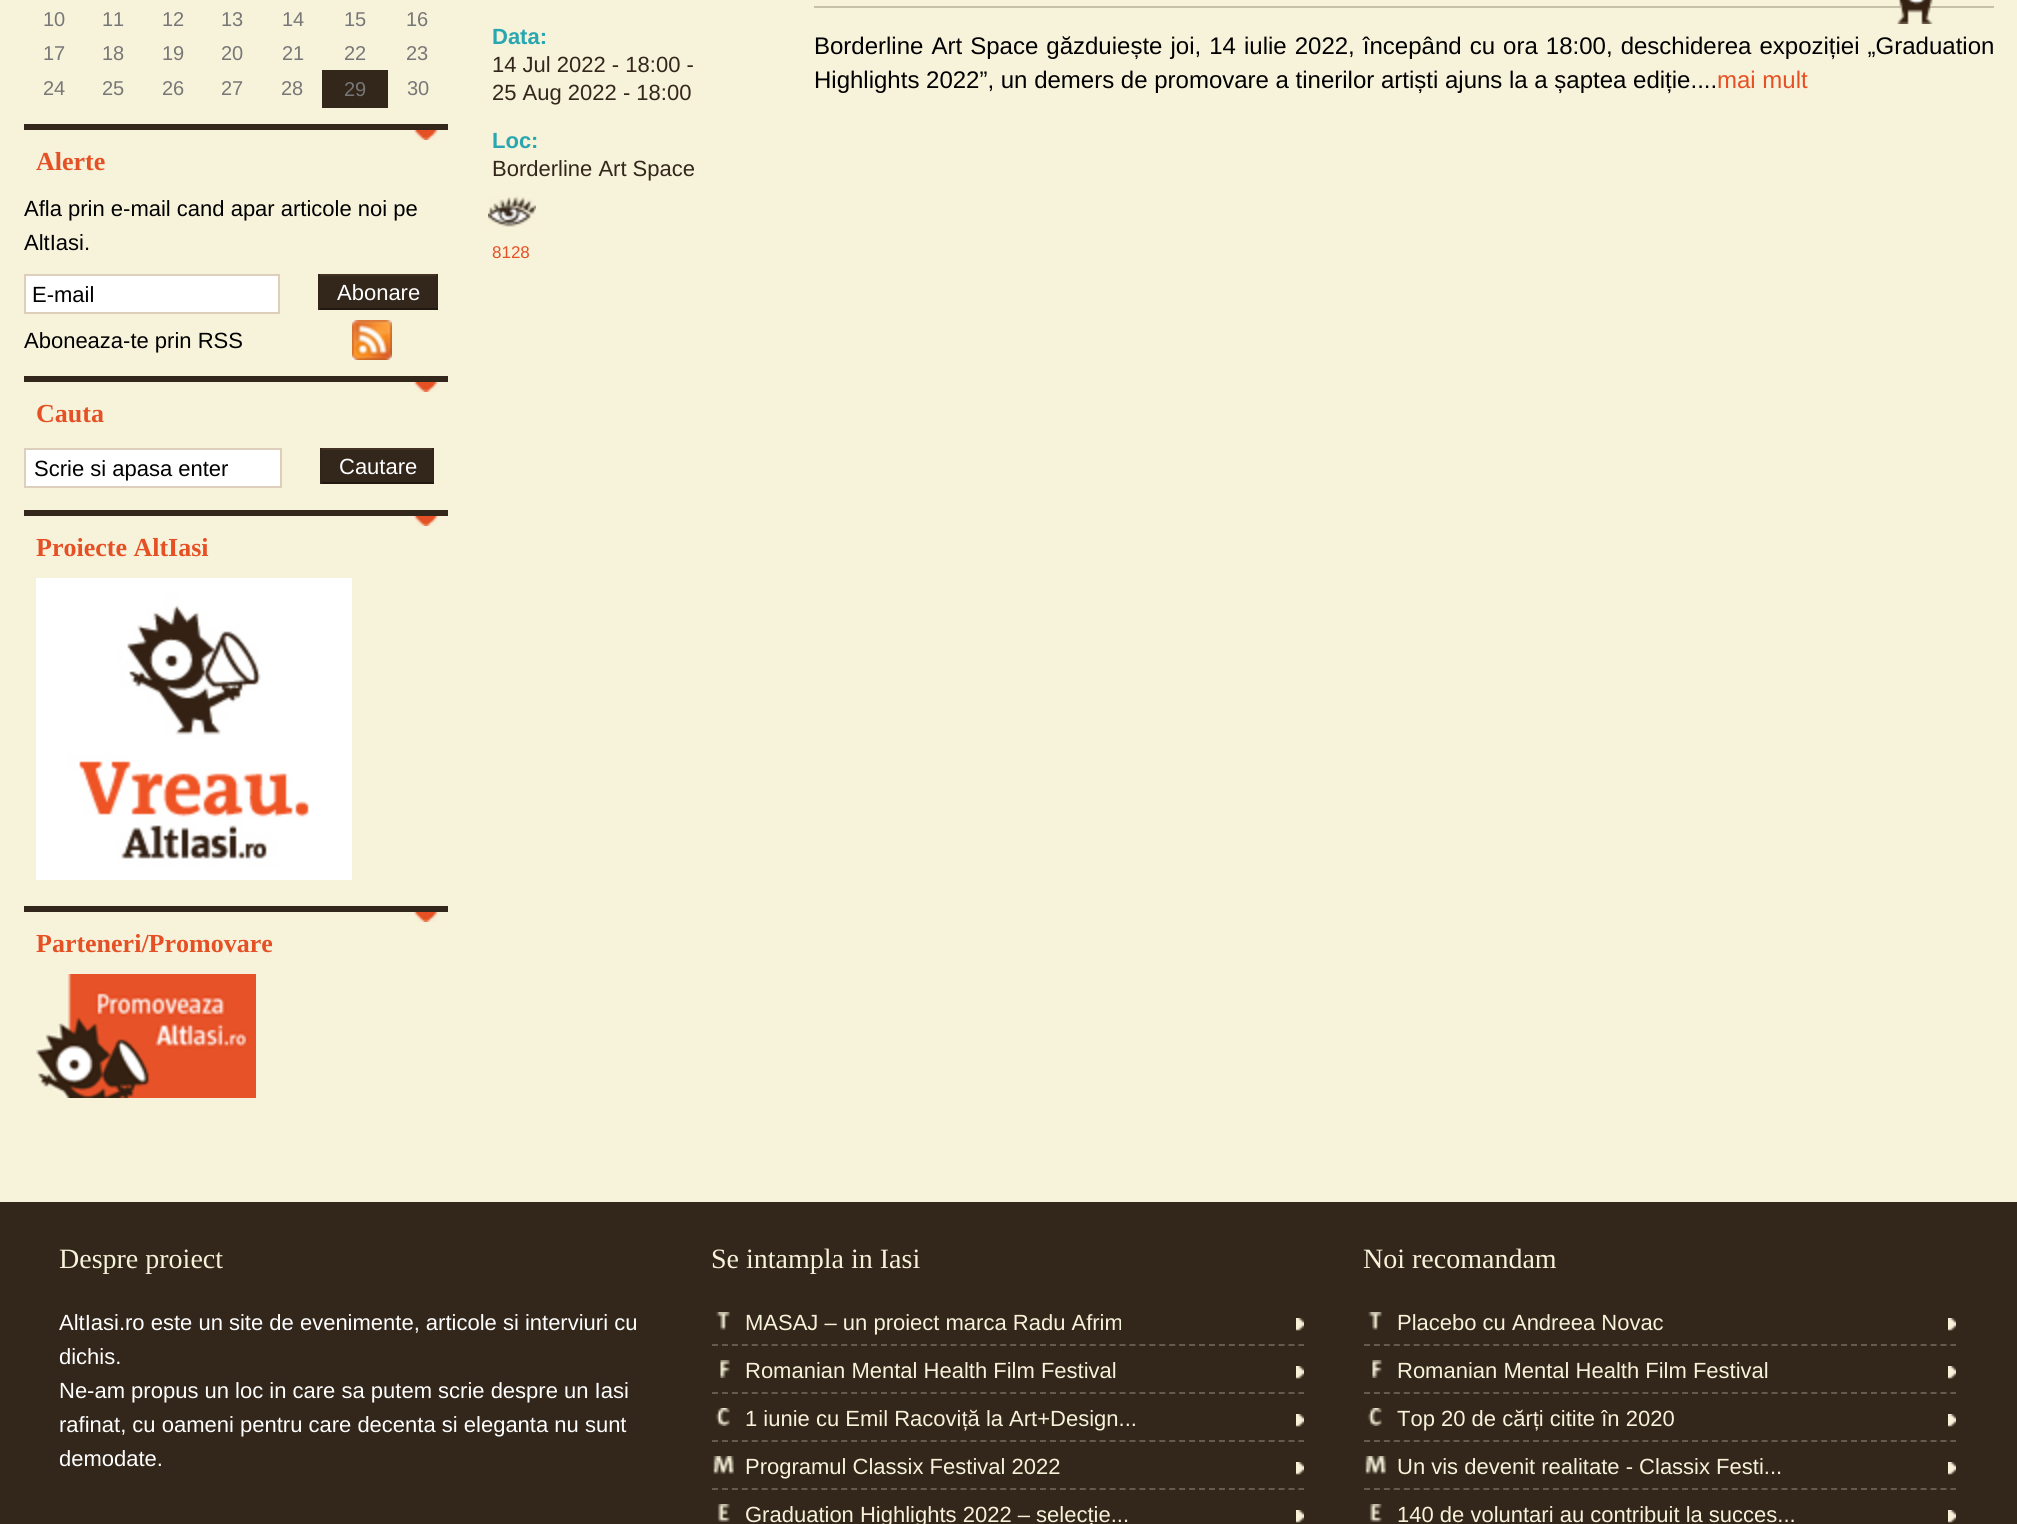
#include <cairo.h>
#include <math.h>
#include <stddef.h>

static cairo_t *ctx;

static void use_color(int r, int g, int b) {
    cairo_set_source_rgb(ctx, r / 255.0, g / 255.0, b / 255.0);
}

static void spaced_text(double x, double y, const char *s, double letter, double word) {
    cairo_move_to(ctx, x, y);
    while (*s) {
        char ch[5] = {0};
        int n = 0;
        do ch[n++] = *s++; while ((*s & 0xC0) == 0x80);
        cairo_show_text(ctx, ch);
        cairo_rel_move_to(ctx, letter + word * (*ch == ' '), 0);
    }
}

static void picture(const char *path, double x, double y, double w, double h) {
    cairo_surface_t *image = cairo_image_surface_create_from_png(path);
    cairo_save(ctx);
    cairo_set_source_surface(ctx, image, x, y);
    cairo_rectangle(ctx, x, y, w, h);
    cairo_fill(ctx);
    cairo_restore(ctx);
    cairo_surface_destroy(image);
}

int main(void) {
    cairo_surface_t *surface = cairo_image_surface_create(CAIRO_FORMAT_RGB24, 2017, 1524);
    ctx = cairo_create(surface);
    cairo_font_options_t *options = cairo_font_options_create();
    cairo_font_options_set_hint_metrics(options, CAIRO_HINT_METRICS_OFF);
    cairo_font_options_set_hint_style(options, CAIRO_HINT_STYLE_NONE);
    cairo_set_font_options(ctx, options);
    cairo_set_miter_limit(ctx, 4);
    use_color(247, 242, 218);
    cairo_paint(ctx);
    cairo_select_font_face(ctx, "Liberation Sans", CAIRO_FONT_SLANT_NORMAL, CAIRO_FONT_WEIGHT_NORMAL);
    cairo_set_font_size(ctx, 20);
    use_color(119, 119, 119);
    cairo_move_to(ctx, 43, 26);
    cairo_show_text(ctx, "10");
    cairo_move_to(ctx, 102, 26);
    cairo_show_text(ctx, "11");
    cairo_move_to(ctx, 162, 26);
    cairo_show_text(ctx, "12");
    cairo_move_to(ctx, 221, 26);
    cairo_show_text(ctx, "13");
    cairo_move_to(ctx, 282, 26);
    cairo_show_text(ctx, "14");
    cairo_move_to(ctx, 344, 26);
    cairo_show_text(ctx, "15");
    cairo_move_to(ctx, 406, 26);
    cairo_show_text(ctx, "16");
    cairo_move_to(ctx, 43, 60);
    cairo_show_text(ctx, "17");
    cairo_move_to(ctx, 102, 60);
    cairo_show_text(ctx, "18");
    cairo_move_to(ctx, 162, 60);
    cairo_show_text(ctx, "19");
    cairo_move_to(ctx, 221, 60);
    cairo_show_text(ctx, "20");
    cairo_move_to(ctx, 282, 60);
    cairo_show_text(ctx, "21");
    cairo_move_to(ctx, 344, 60);
    cairo_show_text(ctx, "22");
    cairo_move_to(ctx, 406, 60);
    cairo_show_text(ctx, "23");
    cairo_move_to(ctx, 43, 95);
    cairo_show_text(ctx, "24");
    cairo_move_to(ctx, 102, 95);
    cairo_show_text(ctx, "25");
    cairo_move_to(ctx, 162, 95);
    cairo_show_text(ctx, "26");
    cairo_move_to(ctx, 221, 95);
    cairo_show_text(ctx, "27");
    cairo_move_to(ctx, 281, 95);
    cairo_show_text(ctx, "28");
    use_color(51, 38, 26);
    cairo_rectangle(ctx, 324, 72, 62, 34);
    cairo_fill(ctx);
    cairo_rectangle(ctx, 322, 70, 66, 2);
    cairo_fill(ctx);
    cairo_rectangle(ctx, 386, 70, 2, 38);
    cairo_fill(ctx);
    cairo_rectangle(ctx, 322, 106, 66, 2);
    cairo_fill(ctx);
    cairo_rectangle(ctx, 322, 70, 2, 38);
    cairo_fill(ctx);
    use_color(119, 119, 119);
    cairo_move_to(ctx, 344, 96);
    cairo_show_text(ctx, "29");
    cairo_move_to(ctx, 407, 95);
    cairo_show_text(ctx, "30");
    picture("img1.png", 414, 130, 24, 10);
    use_color(51, 38, 26);
    cairo_rectangle(ctx, 24, 124, 424, 6);
    cairo_fill(ctx);
    cairo_select_font_face(ctx, "Liberation Serif", CAIRO_FONT_SLANT_NORMAL, CAIRO_FONT_WEIGHT_BOLD);
    cairo_set_font_size(ctx, 26);
    use_color(229, 81, 36);
    cairo_move_to(ctx, 36, 170);
    cairo_show_text(ctx, "Alerte");
    cairo_select_font_face(ctx, "Liberation Sans", CAIRO_FONT_SLANT_NORMAL, CAIRO_FONT_WEIGHT_NORMAL);
    cairo_set_font_size(ctx, 22);
    use_color(0, 0, 0);
    cairo_move_to(ctx, 24, 216);
    cairo_show_text(ctx, "Afla prin e-mail cand apar articole noi pe");
    cairo_move_to(ctx, 24, 250);
    cairo_show_text(ctx, "AltIasi.");
    use_color(255, 255, 255);
    cairo_rectangle(ctx, 25, 275, 254, 38);
    cairo_fill_preserve(ctx);
    use_color(222, 207, 188);
    cairo_stroke(ctx);
    use_color(0, 0, 0);
    cairo_move_to(ctx, 32, 302);
    cairo_show_text(ctx, "E-mail");
    use_color(51, 38, 26);
    cairo_rectangle(ctx, 320, 276, 116, 32);
    cairo_fill(ctx);
    use_color(67, 50, 35);
    cairo_rectangle(ctx, 318, 274, 120, 2);
    cairo_fill(ctx);
    use_color(50, 37, 26);
    cairo_rectangle(ctx, 436, 274, 2, 36);
    cairo_fill(ctx);
    use_color(34, 25, 17);
    cairo_rectangle(ctx, 318, 308, 120, 2);
    cairo_fill(ctx);
    use_color(50, 37, 26);
    cairo_rectangle(ctx, 318, 274, 2, 36);
    cairo_fill(ctx);
    use_color(255, 255, 255);
    cairo_move_to(ctx, 337, 300);
    cairo_show_text(ctx, "Abonare");
    use_color(0, 0, 0);
    cairo_move_to(ctx, 24, 348);
    cairo_show_text(ctx, "Aboneaza-te prin RSS");
    picture("img2.png", 352, 320, 40, 40);
    picture("img1.png", 414, 382, 24, 10);
    use_color(51, 38, 26);
    cairo_rectangle(ctx, 24, 376, 424, 6);
    cairo_fill(ctx);
    cairo_select_font_face(ctx, "Liberation Serif", CAIRO_FONT_SLANT_NORMAL, CAIRO_FONT_WEIGHT_BOLD);
    cairo_set_font_size(ctx, 26);
    use_color(229, 81, 36);
    cairo_move_to(ctx, 36, 422);
    cairo_show_text(ctx, "Cauta");
    use_color(255, 255, 255);
    cairo_rectangle(ctx, 25, 449, 256, 38);
    cairo_fill_preserve(ctx);
    use_color(222, 207, 188);
    cairo_stroke(ctx);
    cairo_select_font_face(ctx, "Liberation Sans", CAIRO_FONT_SLANT_NORMAL, CAIRO_FONT_WEIGHT_NORMAL);
    cairo_set_font_size(ctx, 22);
    use_color(0, 0, 0);
    cairo_move_to(ctx, 34, 476);
    cairo_show_text(ctx, "Scrie si apasa enter");
    use_color(51, 38, 26);
    cairo_rectangle(ctx, 322, 450, 110, 32);
    cairo_fill(ctx);
    use_color(67, 50, 35);
    cairo_rectangle(ctx, 320, 448, 114, 2);
    cairo_fill(ctx);
    use_color(50, 37, 26);
    cairo_rectangle(ctx, 432, 448, 2, 36);
    cairo_fill(ctx);
    use_color(34, 25, 17);
    cairo_rectangle(ctx, 320, 482, 114, 2);
    cairo_fill(ctx);
    use_color(50, 37, 26);
    cairo_rectangle(ctx, 320, 448, 2, 36);
    cairo_fill(ctx);
    use_color(255, 255, 255);
    cairo_move_to(ctx, 339, 474);
    cairo_show_text(ctx, "Cautare");
    picture("img1.png", 414, 516, 24, 10);
    use_color(51, 38, 26);
    cairo_rectangle(ctx, 24, 510, 424, 6);
    cairo_fill(ctx);
    cairo_select_font_face(ctx, "Liberation Serif", CAIRO_FONT_SLANT_NORMAL, CAIRO_FONT_WEIGHT_BOLD);
    cairo_set_font_size(ctx, 26);
    use_color(229, 81, 36);
    cairo_move_to(ctx, 36, 556);
    cairo_show_text(ctx, "Proiecte AltIasi");
    picture("img3.png", 36, 578, 316, 302);
    picture("img1.png", 414, 912, 24, 10);
    use_color(51, 38, 26);
    cairo_rectangle(ctx, 24, 906, 424, 6);
    cairo_fill(ctx);
    use_color(229, 81, 36);
    cairo_move_to(ctx, 36, 952);
    cairo_show_text(ctx, "Parteneri/Promovare");
    picture("img4.png", 36, 974, 220, 124);
    cairo_select_font_face(ctx, "Liberation Sans", CAIRO_FONT_SLANT_NORMAL, CAIRO_FONT_WEIGHT_BOLD);
    cairo_set_font_size(ctx, 22);
    use_color(40, 167, 176);
    cairo_move_to(ctx, 492, 44);
    cairo_show_text(ctx, "Data:");
    cairo_select_font_face(ctx, "Liberation Sans", CAIRO_FONT_SLANT_NORMAL, CAIRO_FONT_WEIGHT_NORMAL);
    use_color(51, 38, 26);
    cairo_move_to(ctx, 492, 72);
    cairo_show_text(ctx, "14 Jul 2022 - 18:00 -");
    cairo_move_to(ctx, 492, 100);
    cairo_show_text(ctx, "25 Aug 2022 - 18:00");
    cairo_select_font_face(ctx, "Liberation Sans", CAIRO_FONT_SLANT_NORMAL, CAIRO_FONT_WEIGHT_BOLD);
    use_color(40, 167, 176);
    cairo_move_to(ctx, 492, 148);
    cairo_show_text(ctx, "Loc:");
    cairo_select_font_face(ctx, "Liberation Sans", CAIRO_FONT_SLANT_NORMAL, CAIRO_FONT_WEIGHT_NORMAL);
    use_color(51, 38, 26);
    cairo_move_to(ctx, 492, 176);
    cairo_show_text(ctx, "Borderline Art Space");
    picture("img5.png", 488, 196, 48, 31);
    cairo_set_font_size(ctx, 17);
    use_color(229, 81, 36);
    cairo_move_to(ctx, 492, 258);
    cairo_show_text(ctx, "8128");
    use_color(198, 191, 170);
    cairo_rectangle(ctx, 814, 6, 1180, 2);
    cairo_fill(ctx);
    picture("img6.png", 1897, 0, 36, 24);
    cairo_set_font_size(ctx, 24);
    use_color(0, 0, 0);
    spaced_text(814, 54, "Borderline Art Space găzduiește joi, 14 iulie 2022, începând cu ora 18:00, deschiderea expoziției „Graduation", 0, 1.4);
    cairo_move_to(ctx, 814, 88);
    cairo_show_text(ctx, "Highlights 2022”, un demers de promovare a tinerilor artiști ajuns la a șaptea ediție....");
    use_color(229, 81, 36);
    cairo_move_to(ctx, 1717, 88);
    cairo_show_text(ctx, "mai mult");
    use_color(51, 38, 26);
    cairo_rectangle(ctx, 0, 1202, 2017, 322);
    cairo_fill(ctx);
    cairo_select_font_face(ctx, "Liberation Serif", CAIRO_FONT_SLANT_NORMAL, CAIRO_FONT_WEIGHT_NORMAL);
    cairo_set_font_size(ctx, 28);
    use_color(247, 242, 218);
    cairo_move_to(ctx, 59, 1268);
    cairo_show_text(ctx, "Despre proiect");
    cairo_select_font_face(ctx, "Liberation Sans", CAIRO_FONT_SLANT_NORMAL, CAIRO_FONT_WEIGHT_NORMAL);
    cairo_set_font_size(ctx, 22);
    use_color(255, 255, 255);
    cairo_move_to(ctx, 59, 1330);
    cairo_show_text(ctx, "AltIasi.ro este un site de evenimente, articole si interviuri cu");
    cairo_move_to(ctx, 59, 1364);
    cairo_show_text(ctx, "dichis.");
    cairo_move_to(ctx, 59, 1398);
    cairo_show_text(ctx, "Ne-am propus un loc in care sa putem scrie despre un Iasi");
    cairo_move_to(ctx, 59, 1432);
    cairo_show_text(ctx, "rafinat, cu oameni pentru care decenta si eleganta nu sunt");
    cairo_move_to(ctx, 59, 1466);
    cairo_show_text(ctx, "demodate.");
    cairo_select_font_face(ctx, "Liberation Serif", CAIRO_FONT_SLANT_NORMAL, CAIRO_FONT_WEIGHT_NORMAL);
    cairo_set_font_size(ctx, 28);
    use_color(247, 242, 218);
    cairo_move_to(ctx, 711, 1268);
    cairo_show_text(ctx, "Se intampla in Iasi");
    picture("img7.png", 716, 1312, 14, 18);
    cairo_new_path(ctx);
    cairo_move_to(ctx, 712, 1345);
    cairo_line_to(ctx, 1304, 1345);
    use_color(102, 90, 76);
    cairo_set_dash(ctx, (double[]){6, 3.94}, 2, 0);
    cairo_stroke(ctx);
    picture("img8.png", 1296, 1318, 8, 14);
    cairo_select_font_face(ctx, "Liberation Sans", CAIRO_FONT_SLANT_NORMAL, CAIRO_FONT_WEIGHT_NORMAL);
    cairo_set_font_size(ctx, 22);
    use_color(247, 242, 218);
    cairo_move_to(ctx, 745, 1330);
    cairo_show_text(ctx, "MASAJ – un proiect marca Radu Afrim");
    picture("img9.png", 720, 1360, 10, 18);
    cairo_new_path(ctx);
    cairo_move_to(ctx, 712, 1393);
    cairo_line_to(ctx, 1304, 1393);
    use_color(102, 90, 76);
    cairo_stroke(ctx);
    picture("img8.png", 1296, 1366, 8, 14);
    use_color(247, 242, 218);
    cairo_move_to(ctx, 745, 1378);
    cairo_show_text(ctx, "Romanian Mental Health Film Festival");
    picture("img10.png", 715, 1408, 15, 18);
    cairo_new_path(ctx);
    cairo_move_to(ctx, 712, 1441);
    cairo_line_to(ctx, 1304, 1441);
    use_color(102, 90, 76);
    cairo_stroke(ctx);
    picture("img8.png", 1296, 1414, 8, 14);
    use_color(247, 242, 218);
    cairo_move_to(ctx, 745, 1426);
    cairo_show_text(ctx, "1 iunie cu Emil Racoviță la Art+Design...");
    picture("img11.png", 713, 1456, 21, 18);
    cairo_new_path(ctx);
    cairo_move_to(ctx, 712, 1489);
    cairo_line_to(ctx, 1304, 1489);
    use_color(102, 90, 76);
    cairo_stroke(ctx);
    picture("img8.png", 1296, 1462, 8, 14);
    use_color(247, 242, 218);
    cairo_move_to(ctx, 745, 1474);
    cairo_show_text(ctx, "Programul Classix Festival 2022");
    picture("img12.png", 717, 1504, 13, 18);
    picture("img8.png", 1296, 1510, 8, 14);
    cairo_move_to(ctx, 745, 1522);
    cairo_show_text(ctx, "Graduation Highlights 2022 – selecție...");
    cairo_select_font_face(ctx, "Liberation Serif", CAIRO_FONT_SLANT_NORMAL, CAIRO_FONT_WEIGHT_NORMAL);
    cairo_set_font_size(ctx, 28);
    cairo_move_to(ctx, 1363, 1268);
    cairo_show_text(ctx, "Noi recomandam");
    picture("img13.png", 1368, 1312, 14, 18);
    cairo_new_path(ctx);
    cairo_move_to(ctx, 1364, 1345);
    cairo_line_to(ctx, 1956, 1345);
    use_color(102, 90, 76);
    cairo_stroke(ctx);
    picture("img8.png", 1948, 1318, 8, 14);
    cairo_select_font_face(ctx, "Liberation Sans", CAIRO_FONT_SLANT_NORMAL, CAIRO_FONT_WEIGHT_NORMAL);
    cairo_set_font_size(ctx, 22);
    use_color(247, 242, 218);
    cairo_move_to(ctx, 1397, 1330);
    cairo_show_text(ctx, "Placebo cu Andreea Novac");
    picture("img9.png", 1372, 1360, 10, 18);
    cairo_new_path(ctx);
    cairo_move_to(ctx, 1364, 1393);
    cairo_line_to(ctx, 1956, 1393);
    use_color(102, 90, 76);
    cairo_stroke(ctx);
    picture("img8.png", 1948, 1366, 8, 14);
    use_color(247, 242, 218);
    cairo_move_to(ctx, 1397, 1378);
    cairo_show_text(ctx, "Romanian Mental Health Film Festival");
    picture("img14.png", 1367, 1408, 15, 18);
    cairo_new_path(ctx);
    cairo_move_to(ctx, 1364, 1441);
    cairo_line_to(ctx, 1956, 1441);
    use_color(102, 90, 76);
    cairo_stroke(ctx);
    picture("img8.png", 1948, 1414, 8, 14);
    use_color(247, 242, 218);
    cairo_move_to(ctx, 1397, 1426);
    cairo_show_text(ctx, "Top 20 de cărți citite în 2020");
    picture("img15.png", 1365, 1456, 22, 18);
    cairo_new_path(ctx);
    cairo_move_to(ctx, 1364, 1489);
    cairo_line_to(ctx, 1956, 1489);
    use_color(102, 90, 76);
    cairo_stroke(ctx);
    picture("img8.png", 1948, 1462, 8, 14);
    use_color(247, 242, 218);
    cairo_move_to(ctx, 1397, 1474);
    cairo_show_text(ctx, "Un vis devenit realitate - Classix Festi...");
    picture("img16.png", 1369, 1504, 13, 18);
    picture("img8.png", 1948, 1510, 8, 14);
    cairo_move_to(ctx, 1397, 1522);
    cairo_show_text(ctx, "140 de voluntari au contribuit la succes...");
    cairo_surface_write_to_png(surface, "result.png");
    cairo_font_options_destroy(options);
    cairo_destroy(ctx);
    cairo_surface_destroy(surface);
    return 0;
}
